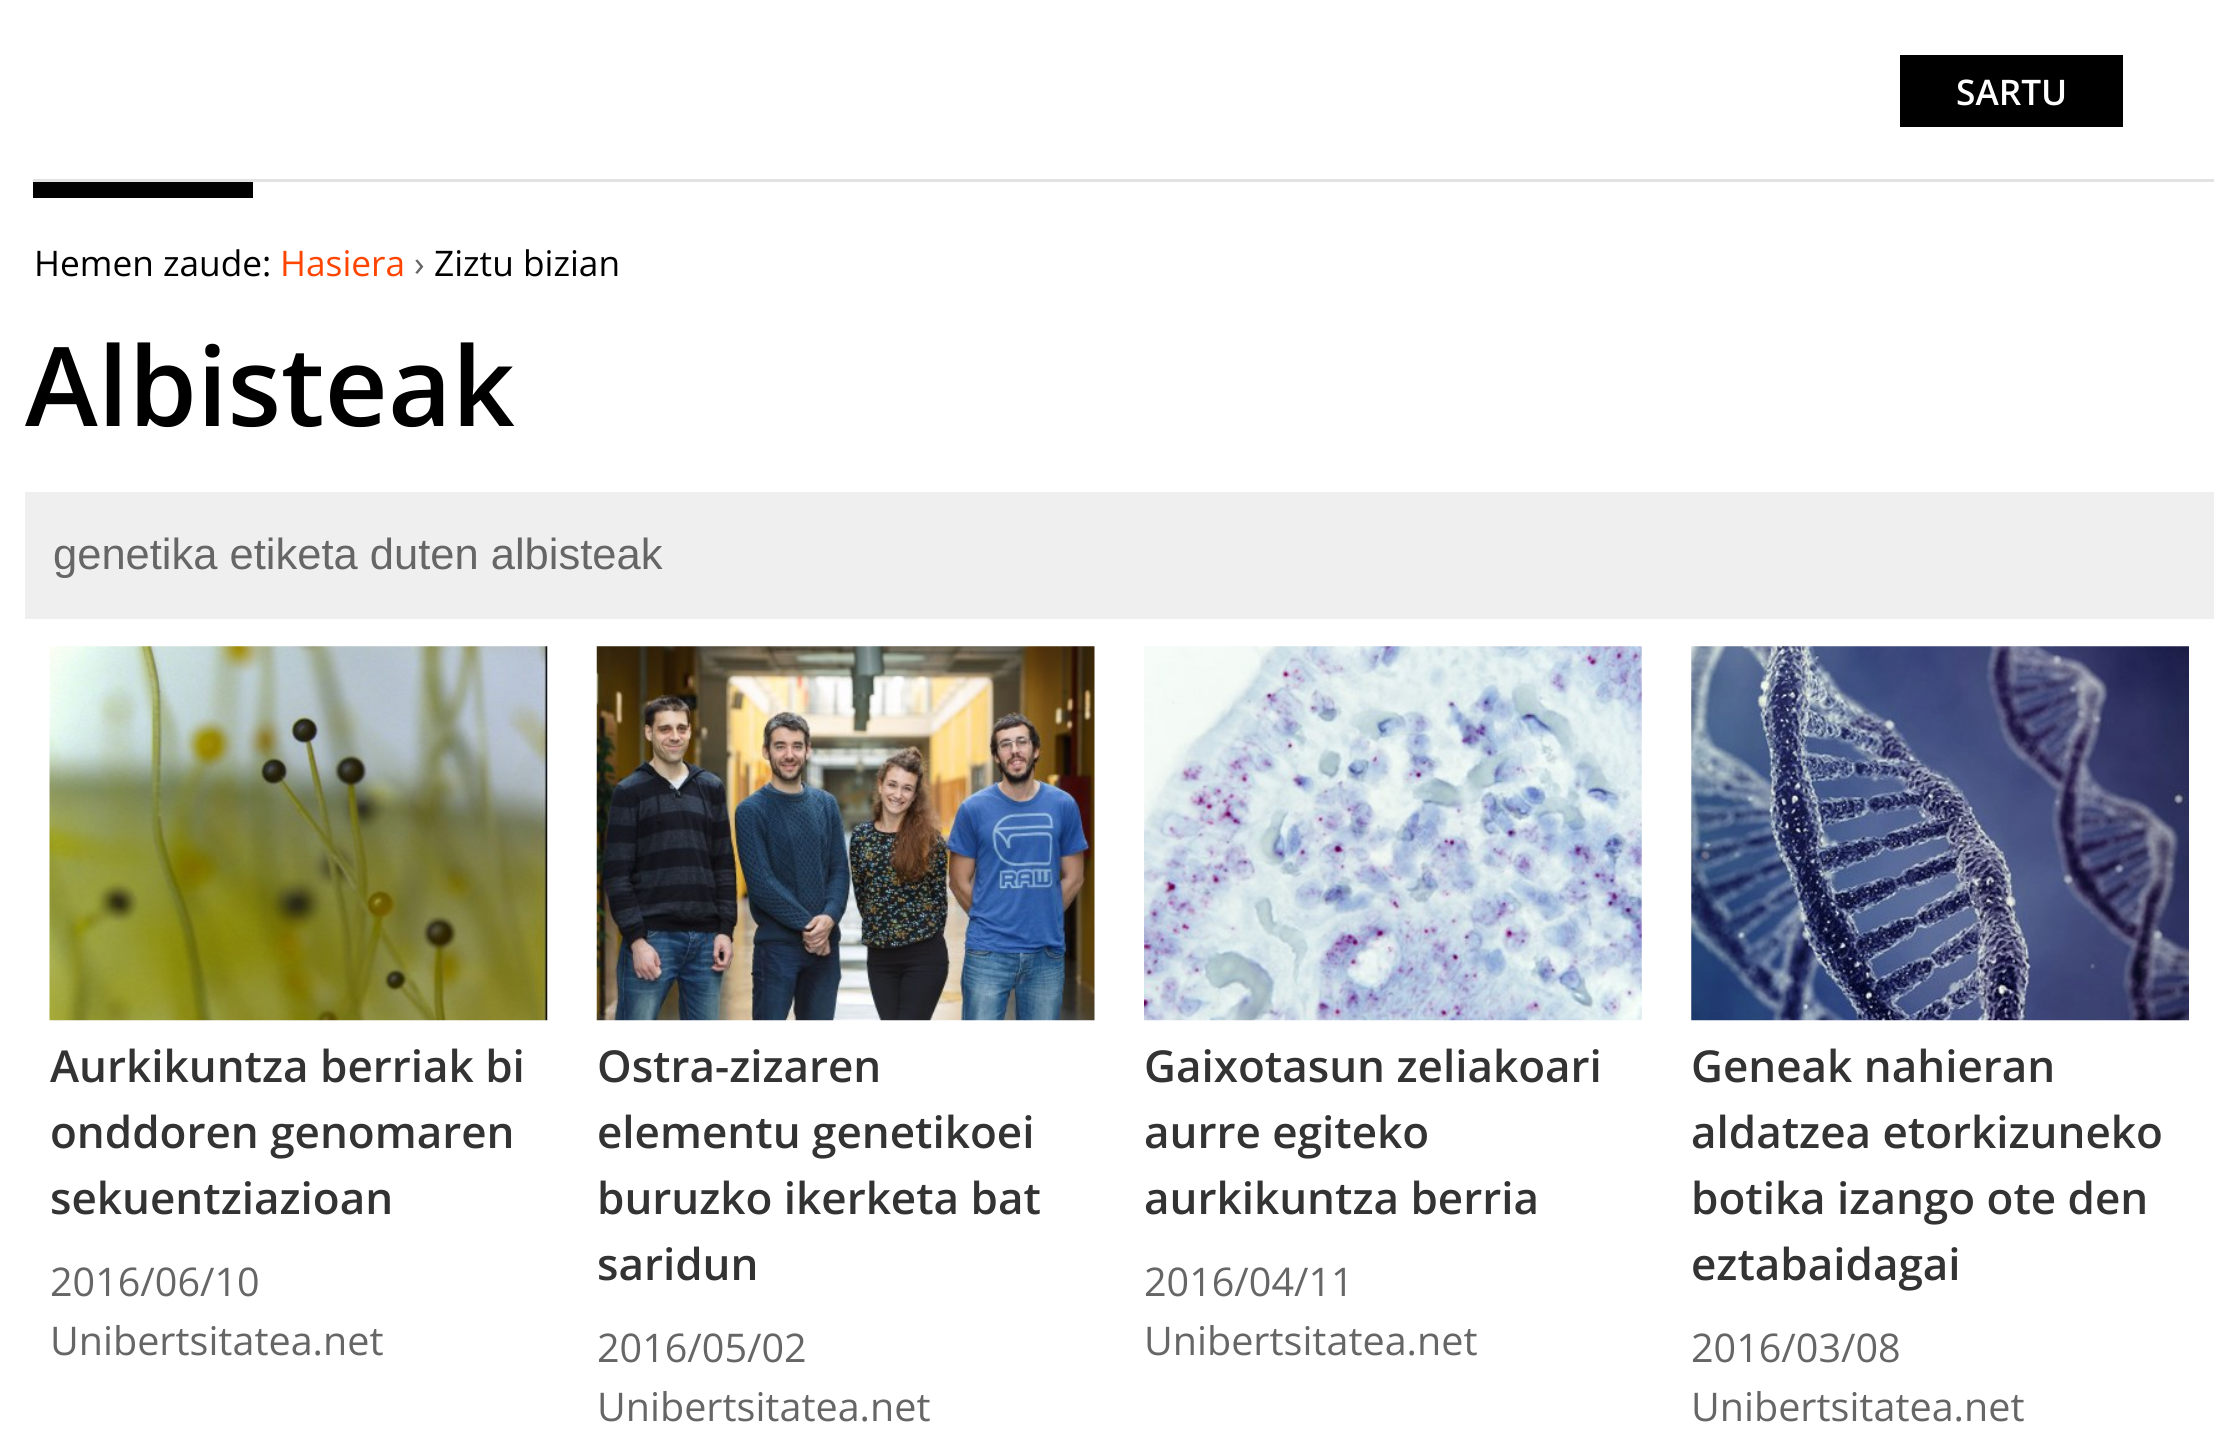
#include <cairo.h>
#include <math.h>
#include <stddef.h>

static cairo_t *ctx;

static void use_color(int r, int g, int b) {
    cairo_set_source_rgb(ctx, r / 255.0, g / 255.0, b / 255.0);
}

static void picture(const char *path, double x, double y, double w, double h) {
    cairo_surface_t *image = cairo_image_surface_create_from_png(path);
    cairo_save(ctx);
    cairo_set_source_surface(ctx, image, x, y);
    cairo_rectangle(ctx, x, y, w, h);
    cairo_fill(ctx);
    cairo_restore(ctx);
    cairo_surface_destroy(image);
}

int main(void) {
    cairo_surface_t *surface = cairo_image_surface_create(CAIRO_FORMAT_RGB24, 2238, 1454);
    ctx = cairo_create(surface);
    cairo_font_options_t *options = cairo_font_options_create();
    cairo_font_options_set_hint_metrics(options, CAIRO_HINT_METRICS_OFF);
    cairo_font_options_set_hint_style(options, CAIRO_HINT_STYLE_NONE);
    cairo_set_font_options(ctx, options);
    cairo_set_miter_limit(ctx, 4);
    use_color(255, 255, 255);
    cairo_paint(ctx);
    use_color(0, 0, 0);
    cairo_rectangle(ctx, 1900, 55, 223, 72);
    cairo_fill(ctx);
    cairo_select_font_face(ctx, "Open Sans SemiBold", CAIRO_FONT_SLANT_NORMAL, CAIRO_FONT_WEIGHT_NORMAL);
    cairo_set_font_size(ctx, 35.25);
    use_color(255, 255, 255);
    cairo_move_to(ctx, 1956, 105);
    cairo_show_text(ctx, "SARTU");
    use_color(226, 226, 226);
    cairo_rectangle(ctx, 33, 179, 2181, 3);
    cairo_fill(ctx);
    use_color(0, 0, 0);
    cairo_rectangle(ctx, 33, 182, 220, 16);
    cairo_fill(ctx);
    cairo_select_font_face(ctx, "Open Sans", CAIRO_FONT_SLANT_NORMAL, CAIRO_FONT_WEIGHT_NORMAL);
    cairo_move_to(ctx, 34, 276);
    cairo_show_text(ctx, "Hemen zaude:");
    use_color(255, 69, 0);
    cairo_move_to(ctx, 280, 276);
    cairo_show_text(ctx, "Hasiera");
    use_color(102, 102, 102);
    cairo_move_to(ctx, 414, 276);
    cairo_show_text(ctx, "›");
    use_color(0, 0, 0);
    cairo_move_to(ctx, 434, 276);
    cairo_show_text(ctx, "Ziztu bizian");
    cairo_select_font_face(ctx, "Open Sans SemiBold", CAIRO_FONT_SLANT_NORMAL, CAIRO_FONT_WEIGHT_NORMAL);
    cairo_set_font_size(ctx, 110);
    cairo_move_to(ctx, 25, 426);
    cairo_show_text(ctx, "Albisteak");
    use_color(239, 239, 239);
    cairo_rectangle(ctx, 25, 492, 2189, 127);
    cairo_fill(ctx);
    cairo_select_font_face(ctx, "Liberation Sans", CAIRO_FONT_SLANT_NORMAL, CAIRO_FONT_WEIGHT_NORMAL);
    cairo_set_font_size(ctx, 43.5);
    use_color(102, 102, 102);
    cairo_move_to(ctx, 53, 569);
    cairo_show_text(ctx, "genetika etiketa duten albisteak");
    picture("img1.png", 49, 646, 499, 375);
    cairo_select_font_face(ctx, "Open Sans SemiBold", CAIRO_FONT_SLANT_NORMAL, CAIRO_FONT_WEIGHT_NORMAL);
    cairo_set_font_size(ctx, 44);
    use_color(51, 51, 51);
    cairo_move_to(ctx, 50, 1082);
    cairo_show_text(ctx, "Aurkikuntza berriak bi");
    cairo_move_to(ctx, 50, 1148);
    cairo_show_text(ctx, "onddoren genomaren");
    cairo_move_to(ctx, 50, 1214);
    cairo_show_text(ctx, "sekuentziazioan");
    cairo_select_font_face(ctx, "Open Sans", CAIRO_FONT_SLANT_NORMAL, CAIRO_FONT_WEIGHT_NORMAL);
    cairo_set_font_size(ctx, 39.5);
    use_color(102, 102, 102);
    cairo_move_to(ctx, 50, 1296);
    cairo_show_text(ctx, "2016/06/10");
    cairo_move_to(ctx, 50, 1355);
    cairo_show_text(ctx, "Unibertsitatea.net");
    picture("img2.png", 596, 646, 499, 375);
    cairo_select_font_face(ctx, "Open Sans SemiBold", CAIRO_FONT_SLANT_NORMAL, CAIRO_FONT_WEIGHT_NORMAL);
    cairo_set_font_size(ctx, 44);
    use_color(51, 51, 51);
    cairo_move_to(ctx, 597, 1082);
    cairo_show_text(ctx, "Ostra-zizaren");
    cairo_move_to(ctx, 597, 1148);
    cairo_show_text(ctx, "elementu genetikoei");
    cairo_move_to(ctx, 597, 1214);
    cairo_show_text(ctx, "buruzko ikerketa bat");
    cairo_move_to(ctx, 597, 1280);
    cairo_show_text(ctx, "saridun");
    cairo_select_font_face(ctx, "Open Sans", CAIRO_FONT_SLANT_NORMAL, CAIRO_FONT_WEIGHT_NORMAL);
    cairo_set_font_size(ctx, 39.5);
    use_color(102, 102, 102);
    cairo_move_to(ctx, 597, 1362);
    cairo_show_text(ctx, "2016/05/02");
    cairo_move_to(ctx, 597, 1421);
    cairo_show_text(ctx, "Unibertsitatea.net");
    picture("img3.png", 1144, 646, 498, 375);
    cairo_select_font_face(ctx, "Open Sans SemiBold", CAIRO_FONT_SLANT_NORMAL, CAIRO_FONT_WEIGHT_NORMAL);
    cairo_set_font_size(ctx, 44);
    use_color(51, 51, 51);
    cairo_move_to(ctx, 1144, 1082);
    cairo_show_text(ctx, "Gaixotasun zeliakoari");
    cairo_move_to(ctx, 1144, 1148);
    cairo_show_text(ctx, "aurre egiteko");
    cairo_move_to(ctx, 1144, 1214);
    cairo_show_text(ctx, "aurkikuntza berria");
    cairo_select_font_face(ctx, "Open Sans", CAIRO_FONT_SLANT_NORMAL, CAIRO_FONT_WEIGHT_NORMAL);
    cairo_set_font_size(ctx, 39.5);
    use_color(102, 102, 102);
    cairo_move_to(ctx, 1144, 1296);
    cairo_show_text(ctx, "2016/04/11");
    cairo_move_to(ctx, 1144, 1355);
    cairo_show_text(ctx, "Unibertsitatea.net");
    picture("img4.png", 1691, 646, 498, 375);
    cairo_select_font_face(ctx, "Open Sans SemiBold", CAIRO_FONT_SLANT_NORMAL, CAIRO_FONT_WEIGHT_NORMAL);
    cairo_set_font_size(ctx, 44);
    use_color(51, 51, 51);
    cairo_move_to(ctx, 1691, 1082);
    cairo_show_text(ctx, "Geneak nahieran");
    cairo_move_to(ctx, 1691, 1148);
    cairo_show_text(ctx, "aldatzea etorkizuneko");
    cairo_move_to(ctx, 1691, 1214);
    cairo_show_text(ctx, "botika izango ote den");
    cairo_move_to(ctx, 1691, 1280);
    cairo_show_text(ctx, "eztabaidagai");
    cairo_select_font_face(ctx, "Open Sans", CAIRO_FONT_SLANT_NORMAL, CAIRO_FONT_WEIGHT_NORMAL);
    cairo_set_font_size(ctx, 39.5);
    use_color(102, 102, 102);
    cairo_move_to(ctx, 1691, 1362);
    cairo_show_text(ctx, "2016/03/08");
    cairo_move_to(ctx, 1691, 1421);
    cairo_show_text(ctx, "Unibertsitatea.net");
    cairo_surface_write_to_png(surface, "result.png");
    cairo_font_options_destroy(options);
    cairo_destroy(ctx);
    cairo_surface_destroy(surface);
    return 0;
}
